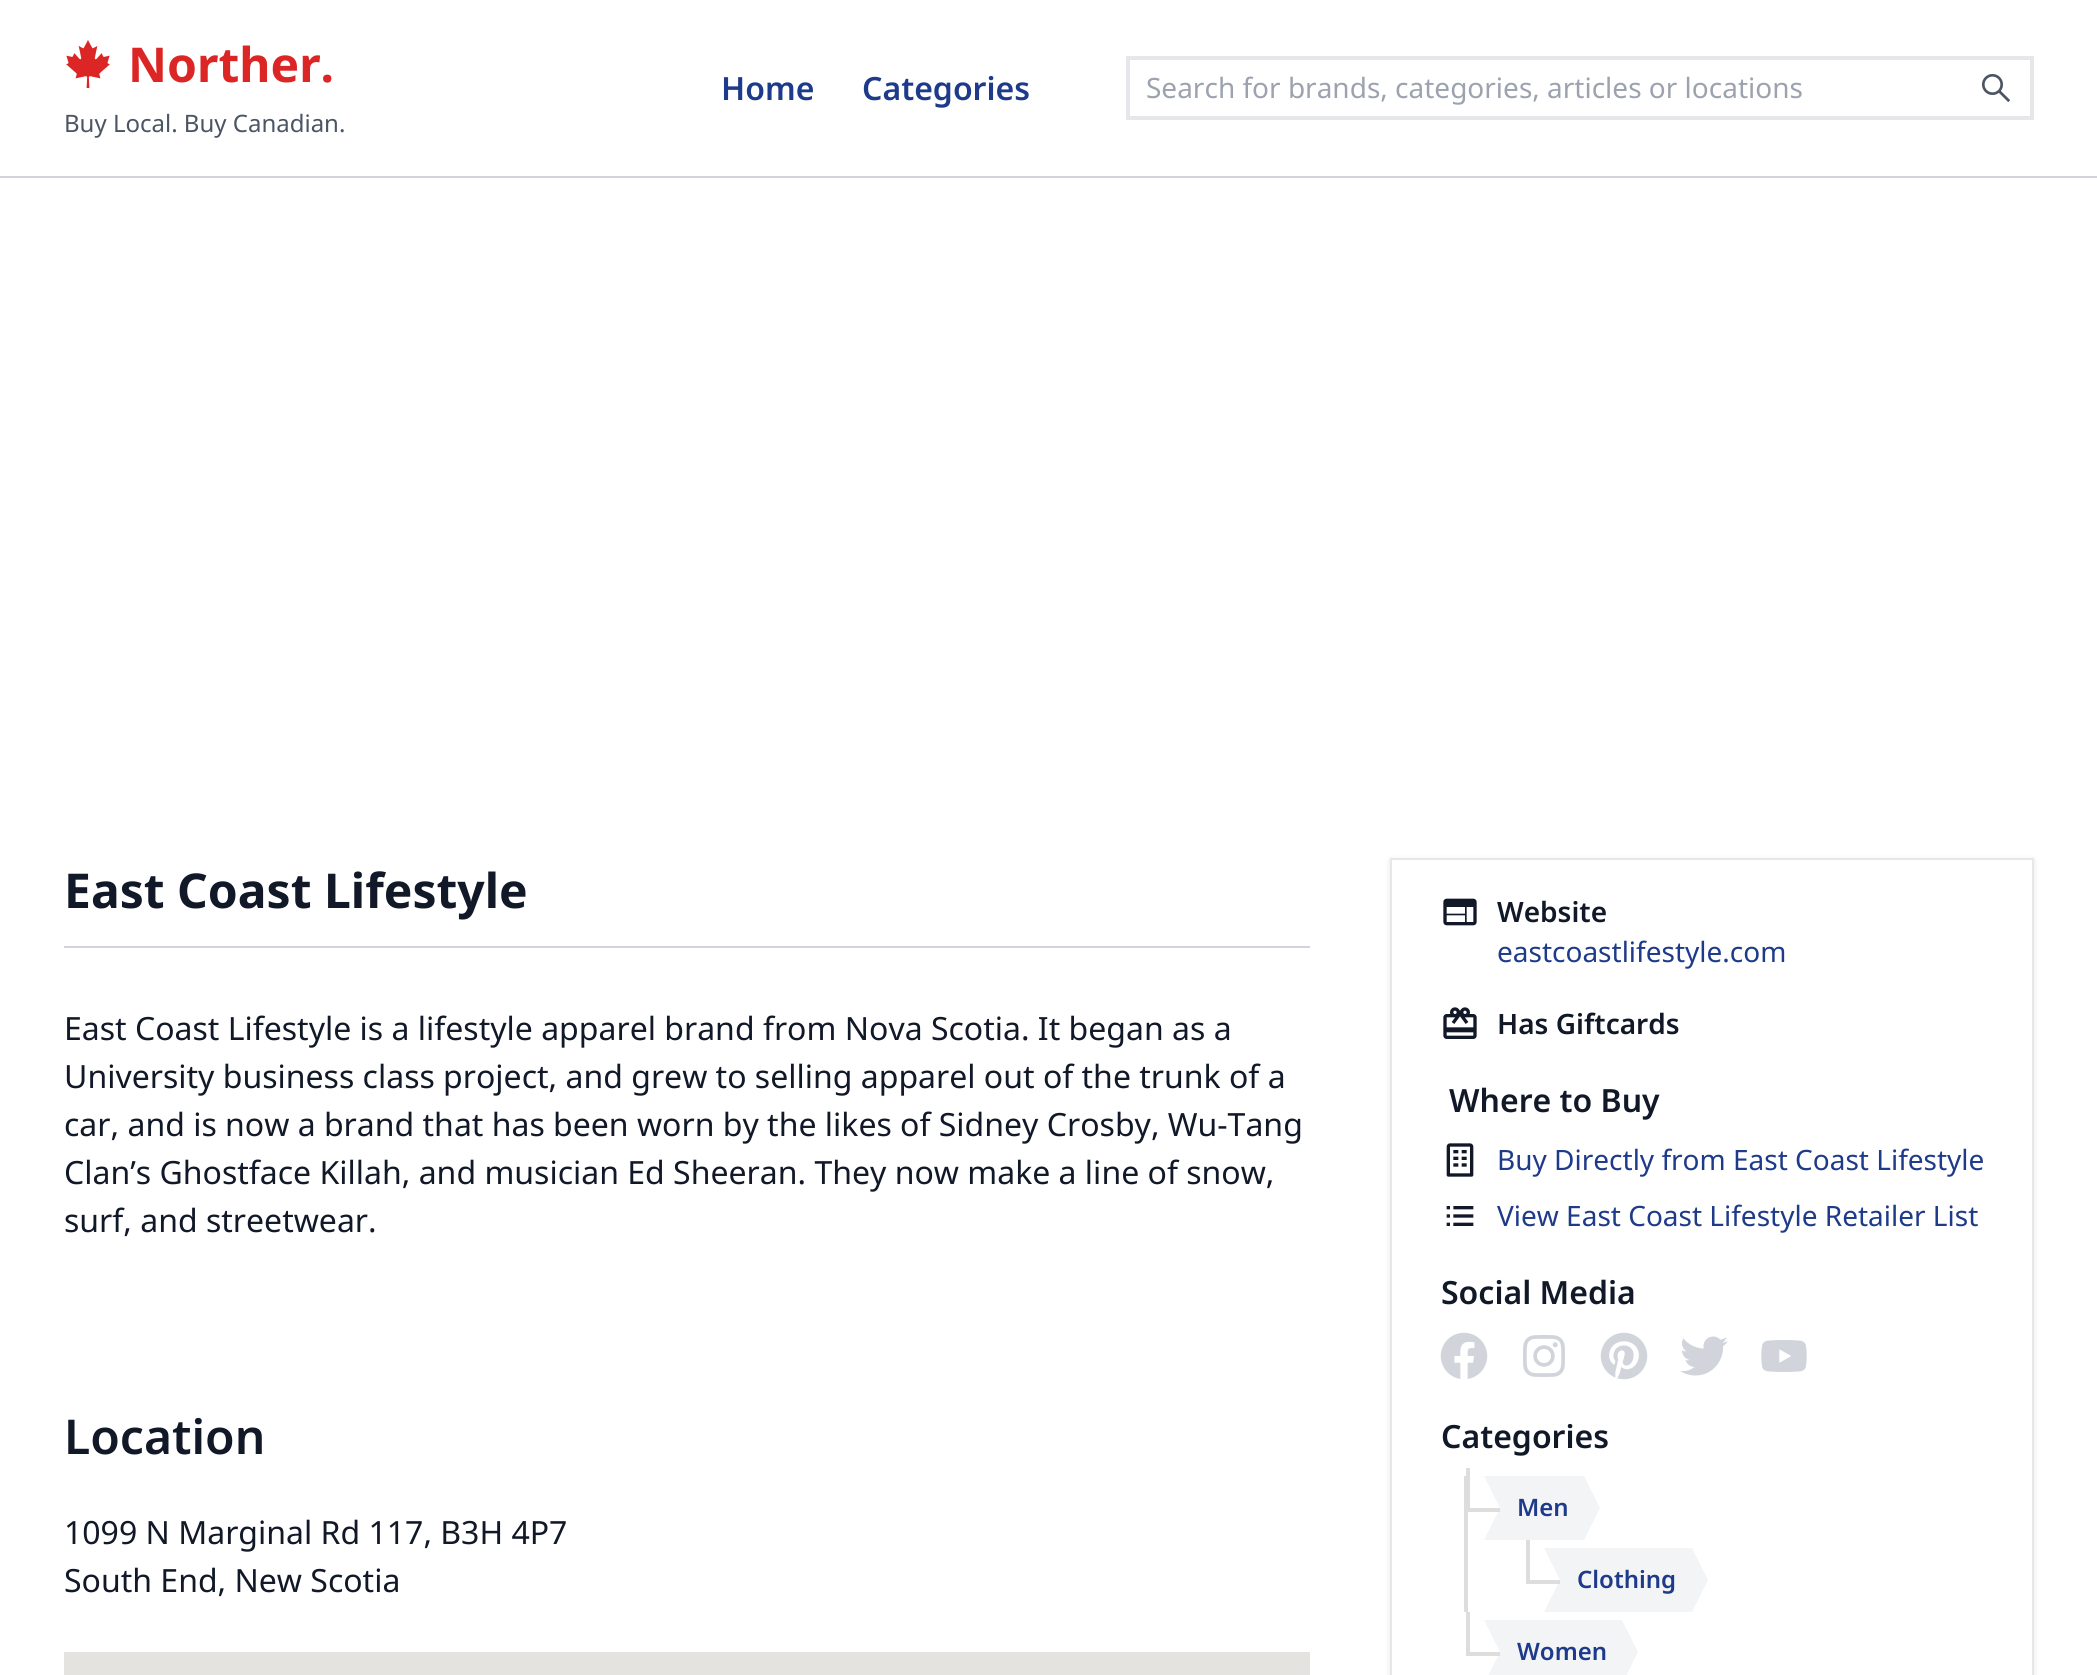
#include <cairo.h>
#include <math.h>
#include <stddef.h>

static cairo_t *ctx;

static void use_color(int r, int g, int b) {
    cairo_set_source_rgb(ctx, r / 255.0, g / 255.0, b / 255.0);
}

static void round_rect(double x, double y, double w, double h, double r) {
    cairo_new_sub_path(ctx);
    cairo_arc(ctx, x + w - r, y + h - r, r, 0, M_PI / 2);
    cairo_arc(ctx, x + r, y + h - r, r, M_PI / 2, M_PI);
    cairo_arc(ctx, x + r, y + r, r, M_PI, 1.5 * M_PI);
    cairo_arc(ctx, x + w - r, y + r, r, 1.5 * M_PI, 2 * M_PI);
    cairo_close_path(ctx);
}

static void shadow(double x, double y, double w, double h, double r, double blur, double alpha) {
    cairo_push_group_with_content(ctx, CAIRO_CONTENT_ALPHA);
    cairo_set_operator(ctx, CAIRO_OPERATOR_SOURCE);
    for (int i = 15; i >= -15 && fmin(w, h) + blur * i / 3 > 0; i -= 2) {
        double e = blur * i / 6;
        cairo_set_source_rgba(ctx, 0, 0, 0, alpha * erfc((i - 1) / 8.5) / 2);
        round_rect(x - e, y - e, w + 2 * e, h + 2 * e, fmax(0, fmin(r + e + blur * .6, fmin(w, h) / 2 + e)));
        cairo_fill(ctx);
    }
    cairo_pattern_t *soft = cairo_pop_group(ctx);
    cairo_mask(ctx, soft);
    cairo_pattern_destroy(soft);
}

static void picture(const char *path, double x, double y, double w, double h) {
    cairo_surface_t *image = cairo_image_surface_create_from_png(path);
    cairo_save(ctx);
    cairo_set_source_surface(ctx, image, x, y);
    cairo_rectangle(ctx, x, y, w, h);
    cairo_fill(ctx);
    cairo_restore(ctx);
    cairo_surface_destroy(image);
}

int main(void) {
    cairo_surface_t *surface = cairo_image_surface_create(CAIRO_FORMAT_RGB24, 2097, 1675);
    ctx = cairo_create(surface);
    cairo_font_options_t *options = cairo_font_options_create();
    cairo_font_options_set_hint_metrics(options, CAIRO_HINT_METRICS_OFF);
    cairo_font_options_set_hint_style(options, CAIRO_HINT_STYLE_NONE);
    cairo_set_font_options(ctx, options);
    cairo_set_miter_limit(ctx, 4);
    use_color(255, 255, 255);
    cairo_paint(ctx);
    use_color(209, 213, 219);
    cairo_rectangle(ctx, 0, 176, 2097, 2);
    cairo_fill(ctx);
    picture("img1.png", 66, 40, 44, 48);
    cairo_select_font_face(ctx, "Noto Sans", CAIRO_FONT_SLANT_NORMAL, CAIRO_FONT_WEIGHT_BOLD);
    cairo_set_font_size(ctx, 48);
    use_color(220, 38, 38);
    cairo_move_to(ctx, 128, 82);
    cairo_show_text(ctx, "Norther.");
    cairo_select_font_face(ctx, "Noto Sans", CAIRO_FONT_SLANT_NORMAL, CAIRO_FONT_WEIGHT_NORMAL);
    cairo_set_font_size(ctx, 24);
    use_color(75, 85, 99);
    cairo_move_to(ctx, 64, 132);
    cairo_show_text(ctx, "Buy Local. Buy Canadian.");
    cairo_select_font_face(ctx, "Noto Sans SemiBold", CAIRO_FONT_SLANT_NORMAL, CAIRO_FONT_WEIGHT_NORMAL);
    cairo_set_font_size(ctx, 32);
    use_color(30, 58, 138);
    cairo_move_to(ctx, 721, 100);
    cairo_show_text(ctx, "Home");
    cairo_move_to(ctx, 862, 100);
    cairo_show_text(ctx, "Categories");
    cairo_rectangle(ctx, 1128, 58, 904, 60);
    use_color(229, 231, 235);
    cairo_set_line_width(ctx, 4);
    cairo_stroke(ctx);
    cairo_select_font_face(ctx, "Noto Sans", CAIRO_FONT_SLANT_NORMAL, CAIRO_FONT_WEIGHT_NORMAL);
    cairo_set_font_size(ctx, 28);
    use_color(156, 163, 175);
    cairo_move_to(ctx, 1146, 98);
    cairo_show_text(ctx, "Search for brands, categories, articles or locations");
    picture("img2.png", 1981, 73, 29, 29);
    use_color(209, 213, 219);
    cairo_rectangle(ctx, 64, 946, 1246, 2);
    cairo_fill(ctx);
    cairo_select_font_face(ctx, "Noto Sans", CAIRO_FONT_SLANT_NORMAL, CAIRO_FONT_WEIGHT_BOLD);
    cairo_set_font_size(ctx, 48);
    use_color(17, 24, 39);
    cairo_move_to(ctx, 64, 908);
    cairo_show_text(ctx, "East Coast Lifestyle");
    cairo_select_font_face(ctx, "Noto Sans", CAIRO_FONT_SLANT_NORMAL, CAIRO_FONT_WEIGHT_NORMAL);
    cairo_set_font_size(ctx, 32);
    cairo_move_to(ctx, 64, 1040);
    cairo_show_text(ctx, "East Coast Lifestyle is a lifestyle apparel brand from Nova Scotia. It began as a");
    cairo_move_to(ctx, 64, 1088);
    cairo_show_text(ctx, "University business class project, and grew to selling apparel out of the trunk of a");
    cairo_move_to(ctx, 64, 1136);
    cairo_show_text(ctx, "car, and is now a brand that has been worn by the likes of Sidney Crosby, Wu-Tang");
    cairo_move_to(ctx, 64, 1184);
    cairo_show_text(ctx, "Clan’s Ghostface Killah, and musician Ed Sheeran. They now make a line of snow,");
    cairo_move_to(ctx, 64, 1232);
    cairo_show_text(ctx, "surf, and streetwear.");
    cairo_select_font_face(ctx, "Noto Sans SemiBold", CAIRO_FONT_SLANT_NORMAL, CAIRO_FONT_WEIGHT_NORMAL);
    cairo_set_font_size(ctx, 48);
    cairo_move_to(ctx, 64, 1454);
    cairo_show_text(ctx, "Location");
    cairo_select_font_face(ctx, "Noto Sans", CAIRO_FONT_SLANT_NORMAL, CAIRO_FONT_WEIGHT_NORMAL);
    cairo_set_font_size(ctx, 32);
    cairo_move_to(ctx, 64, 1544);
    cairo_show_text(ctx, "1099 N Marginal Rd 117, B3H 4P7");
    cairo_move_to(ctx, 64, 1592);
    cairo_show_text(ctx, "South End, New Scotia");
    use_color(229, 227, 223);
    cairo_rectangle(ctx, 64, 1652, 1246, 23);
    cairo_fill(ctx);
    cairo_save(ctx);
    cairo_set_fill_rule(ctx, CAIRO_FILL_RULE_EVEN_ODD);
    cairo_new_path(ctx);
    cairo_move_to(ctx, 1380, 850);
    cairo_line_to(ctx, 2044, 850);
    cairo_line_to(ctx, 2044, 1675);
    cairo_line_to(ctx, 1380, 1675);
    cairo_close_path(ctx);
    cairo_move_to(ctx, 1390, 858);
    cairo_line_to(ctx, 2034, 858);
    cairo_line_to(ctx, 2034, 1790);
    cairo_line_to(ctx, 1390, 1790);
    cairo_close_path(ctx);
    cairo_clip(ctx);
    use_color(0, 0, 0);
    shadow(1390, 860, 644, 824, 0, 3, 0.1);
    cairo_restore(ctx);
    cairo_rectangle(ctx, 1391, 859, 642, 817);
    use_color(229, 231, 235);
    cairo_set_line_width(ctx, 2);
    cairo_stroke(ctx);
    picture("img3.png", 1443, 898, 34, 28);
    cairo_select_font_face(ctx, "Noto Sans SemiBold", CAIRO_FONT_SLANT_NORMAL, CAIRO_FONT_WEIGHT_NORMAL);
    cairo_set_font_size(ctx, 28);
    use_color(17, 24, 39);
    cairo_move_to(ctx, 1497, 922);
    cairo_show_text(ctx, "Website");
    cairo_select_font_face(ctx, "Noto Sans", CAIRO_FONT_SLANT_NORMAL, CAIRO_FONT_WEIGHT_NORMAL);
    use_color(30, 58, 138);
    cairo_move_to(ctx, 1497, 962);
    cairo_show_text(ctx, "eastcoastlifestyle.com");
    picture("img4.png", 1443, 1007, 34, 32);
    cairo_select_font_face(ctx, "Noto Sans SemiBold", CAIRO_FONT_SLANT_NORMAL, CAIRO_FONT_WEIGHT_NORMAL);
    use_color(17, 24, 39);
    cairo_move_to(ctx, 1497, 1034);
    cairo_show_text(ctx, "Has Giftcards");
    cairo_set_font_size(ctx, 32);
    cairo_move_to(ctx, 1449, 1112);
    cairo_show_text(ctx, "Where to Buy");
    picture("img5.png", 1446, 1143, 28, 34);
    cairo_select_font_face(ctx, "Noto Sans", CAIRO_FONT_SLANT_NORMAL, CAIRO_FONT_WEIGHT_NORMAL);
    cairo_set_font_size(ctx, 28);
    use_color(30, 58, 138);
    cairo_move_to(ctx, 1497, 1170);
    cairo_show_text(ctx, "Buy Directly from East Coast Lifestyle");
    picture("img6.png", 1446, 1206, 28, 20);
    cairo_move_to(ctx, 1497, 1226);
    cairo_show_text(ctx, "View East Coast Lifestyle Retailer List");
    cairo_select_font_face(ctx, "Noto Sans SemiBold", CAIRO_FONT_SLANT_NORMAL, CAIRO_FONT_WEIGHT_NORMAL);
    cairo_set_font_size(ctx, 32);
    use_color(17, 24, 39);
    cairo_move_to(ctx, 1441, 1304);
    cairo_show_text(ctx, "Social Media");
    picture("img7.png", 1440, 1332, 48, 47);
    picture("img8.png", 1523, 1335, 42, 42);
    picture("img9.png", 1600, 1332, 48, 48);
    picture("img10.png", 1680, 1336, 48, 40);
    picture("img11.png", 1761, 1340, 46, 32);
    cairo_move_to(ctx, 1441, 1448);
    cairo_show_text(ctx, "Categories");
    use_color(221, 221, 221);
    cairo_rectangle(ctx, 1464, 1476, 4, 136);
    cairo_fill(ctx);
    use_color(243, 244, 246);
    cairo_new_path(ctx);
    cairo_move_to(ctx, 1500, 1540);
    cairo_line_to(ctx, 1484, 1540);
    cairo_line_to(ctx, 1500, 1508);
    cairo_close_path(ctx);
    cairo_fill(ctx);
    use_color(221, 221, 221);
    cairo_rectangle(ctx, 1466, 1508, 34, 4);
    cairo_fill(ctx);
    cairo_rectangle(ctx, 1466, 1468, 4, 44);
    cairo_fill(ctx);
    use_color(243, 244, 246);
    cairo_rectangle(ctx, 1500, 1476, 84, 64);
    cairo_fill(ctx);
    cairo_new_path(ctx);
    cairo_move_to(ctx, 1484, 1476);
    cairo_line_to(ctx, 1500, 1476);
    cairo_line_to(ctx, 1500, 1508);
    cairo_close_path(ctx);
    cairo_fill(ctx);
    cairo_set_font_size(ctx, 24);
    use_color(30, 58, 138);
    cairo_move_to(ctx, 1517, 1516);
    cairo_show_text(ctx, "Men");
    use_color(243, 244, 246);
    cairo_new_path(ctx);
    cairo_move_to(ctx, 1584, 1540);
    cairo_line_to(ctx, 1584, 1476);
    cairo_line_to(ctx, 1600, 1508);
    cairo_close_path(ctx);
    cairo_fill(ctx);
    cairo_new_path(ctx);
    cairo_move_to(ctx, 1560, 1612);
    cairo_line_to(ctx, 1544, 1612);
    cairo_line_to(ctx, 1560, 1580);
    cairo_close_path(ctx);
    cairo_fill(ctx);
    use_color(221, 221, 221);
    cairo_rectangle(ctx, 1526, 1580, 34, 4);
    cairo_fill(ctx);
    cairo_rectangle(ctx, 1526, 1540, 4, 44);
    cairo_fill(ctx);
    use_color(243, 244, 246);
    cairo_rectangle(ctx, 1560, 1548, 132, 64);
    cairo_fill(ctx);
    cairo_new_path(ctx);
    cairo_move_to(ctx, 1544, 1548);
    cairo_line_to(ctx, 1560, 1548);
    cairo_line_to(ctx, 1560, 1580);
    cairo_close_path(ctx);
    cairo_fill(ctx);
    use_color(30, 58, 138);
    cairo_move_to(ctx, 1577, 1588);
    cairo_show_text(ctx, "Clothing");
    use_color(243, 244, 246);
    cairo_new_path(ctx);
    cairo_move_to(ctx, 1692, 1612);
    cairo_line_to(ctx, 1692, 1548);
    cairo_line_to(ctx, 1708, 1580);
    cairo_close_path(ctx);
    cairo_fill(ctx);
    cairo_new_path(ctx);
    cairo_move_to(ctx, 1484, 1620);
    cairo_line_to(ctx, 1500, 1620);
    cairo_line_to(ctx, 1500, 1652);
    cairo_close_path(ctx);
    cairo_move_to(ctx, 1500, 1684);
    cairo_line_to(ctx, 1484, 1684);
    cairo_line_to(ctx, 1500, 1652);
    cairo_close_path(ctx);
    cairo_fill(ctx);
    use_color(221, 221, 221);
    cairo_rectangle(ctx, 1466, 1652, 34, 4);
    cairo_fill(ctx);
    cairo_rectangle(ctx, 1466, 1612, 4, 44);
    cairo_fill(ctx);
    use_color(243, 244, 246);
    cairo_rectangle(ctx, 1500, 1620, 122, 55);
    cairo_fill(ctx);
    use_color(30, 58, 138);
    cairo_move_to(ctx, 1517, 1660);
    cairo_show_text(ctx, "Women");
    use_color(243, 244, 246);
    cairo_new_path(ctx);
    cairo_move_to(ctx, 1622, 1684);
    cairo_line_to(ctx, 1622, 1620);
    cairo_line_to(ctx, 1638, 1652);
    cairo_close_path(ctx);
    cairo_fill(ctx);
    cairo_surface_write_to_png(surface, "result.png");
    cairo_font_options_destroy(options);
    cairo_destroy(ctx);
    cairo_surface_destroy(surface);
    return 0;
}
